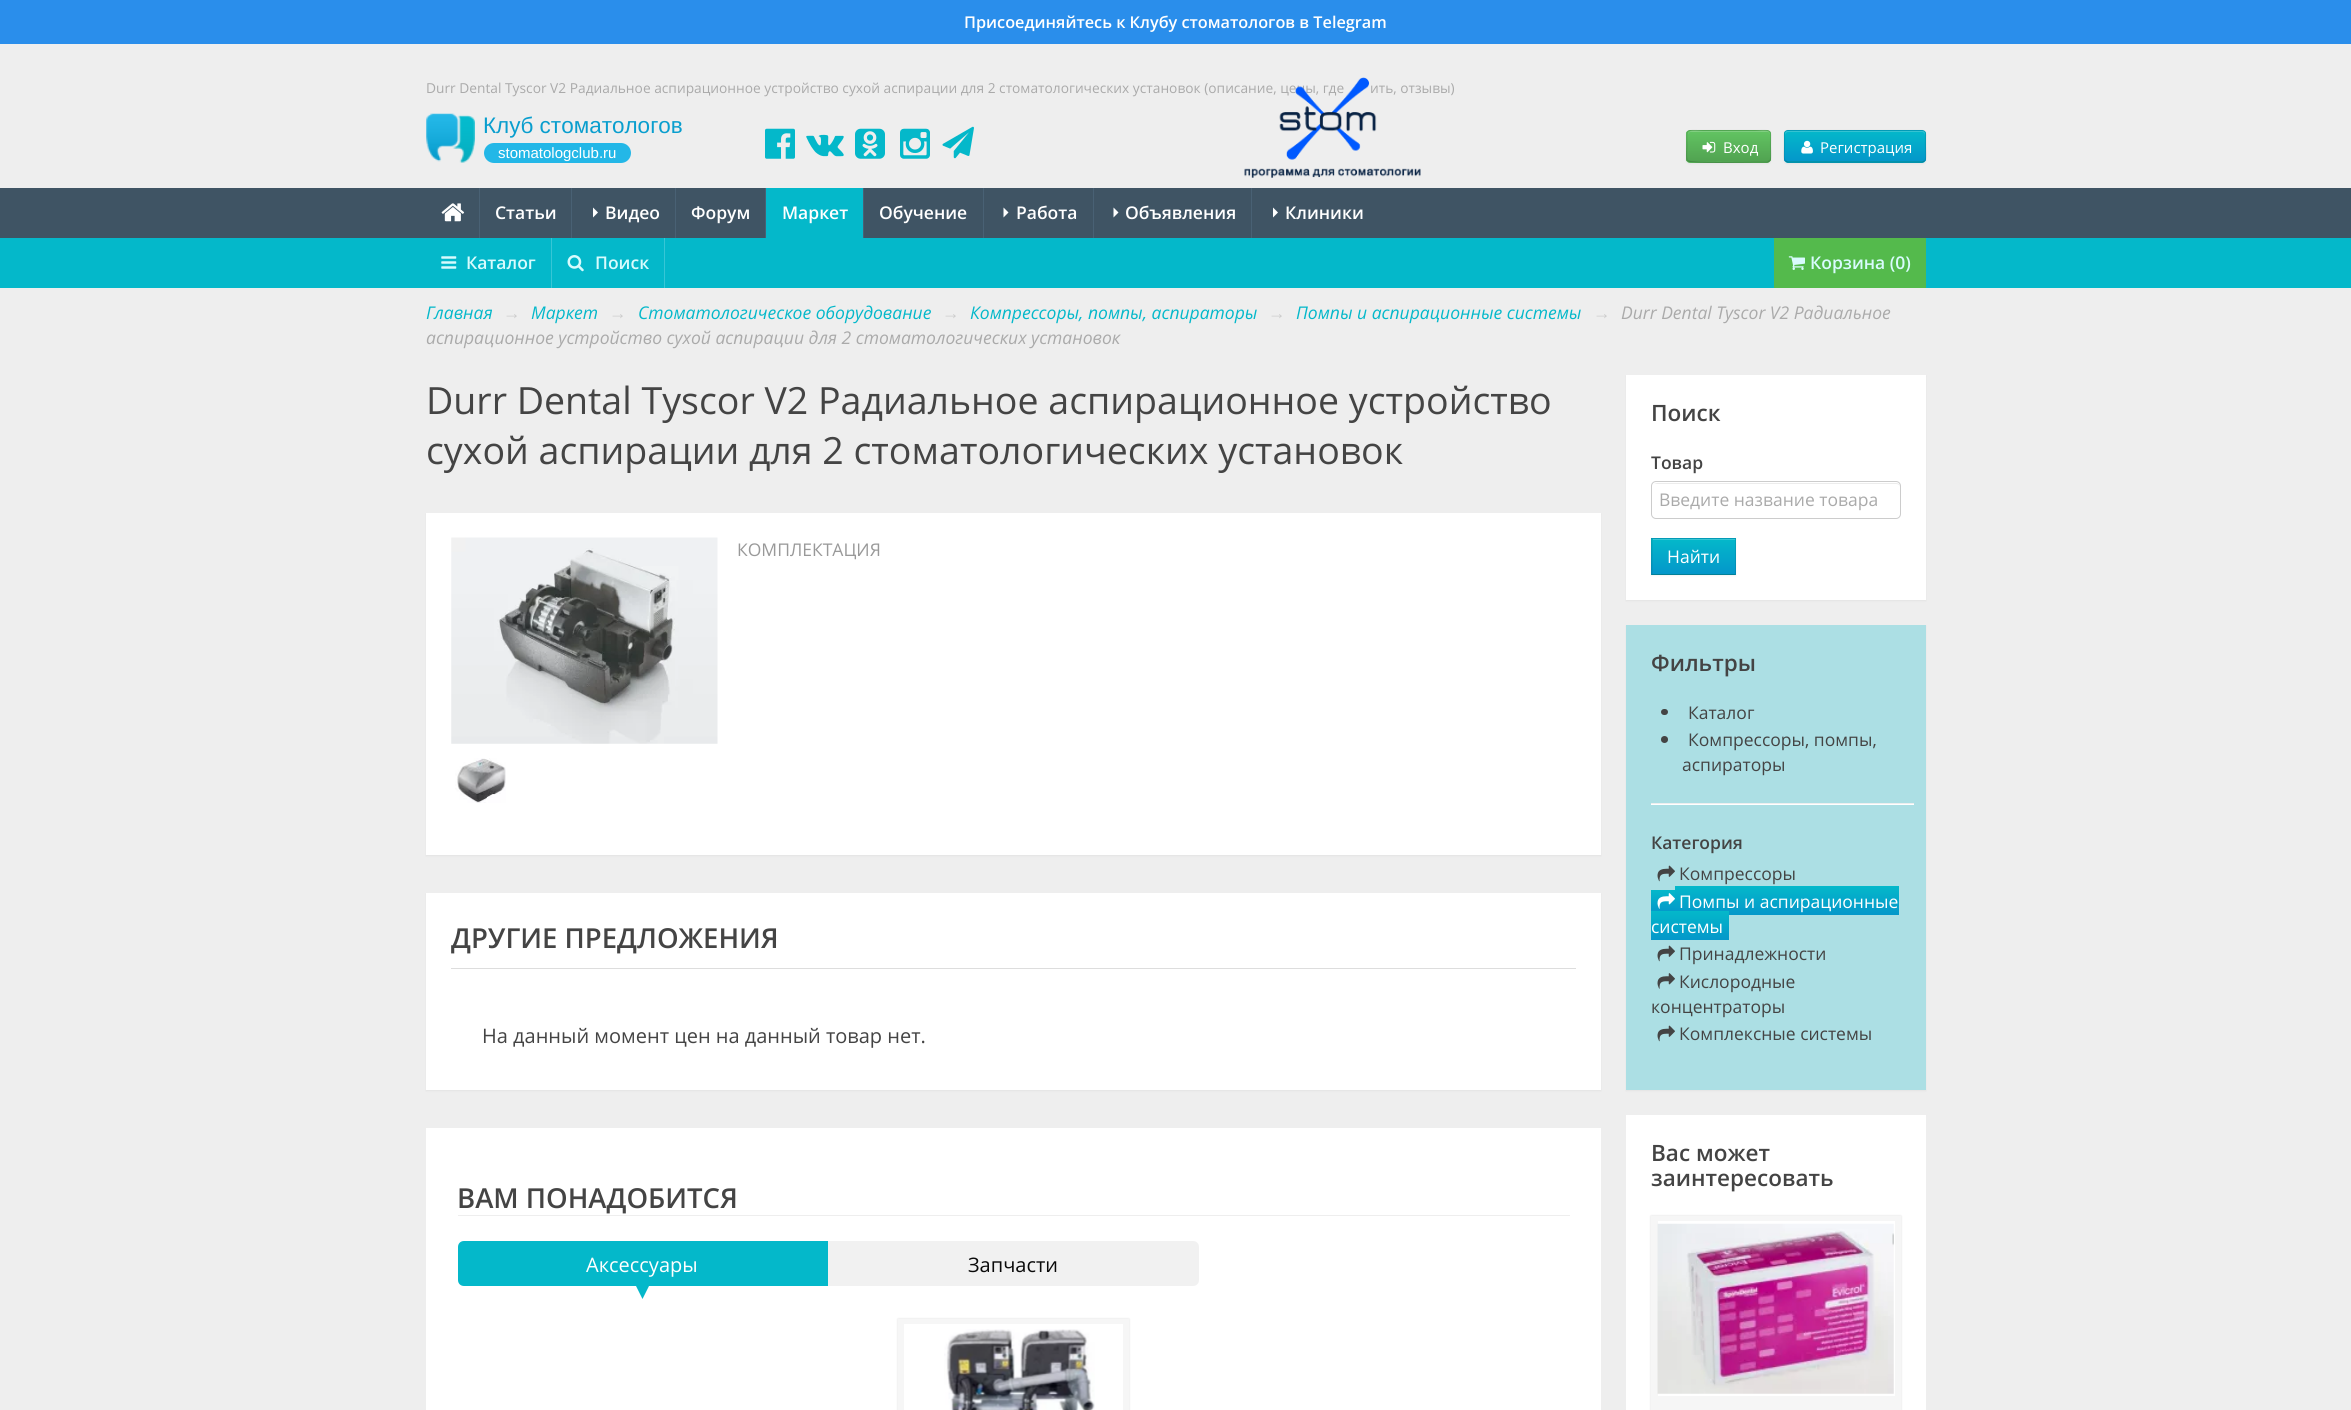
#include <cairo.h>
#include <math.h>
#include <stddef.h>

static cairo_t *ctx;

static void use_color(int r, int g, int b) {
    cairo_set_source_rgb(ctx, r / 255.0, g / 255.0, b / 255.0);
}

static void round_rect(double x, double y, double w, double h, double r) {
    cairo_new_sub_path(ctx);
    cairo_arc(ctx, x + w - r, y + h - r, r, 0, M_PI / 2);
    cairo_arc(ctx, x + r, y + h - r, r, M_PI / 2, M_PI);
    cairo_arc(ctx, x + r, y + r, r, M_PI, 1.5 * M_PI);
    cairo_arc(ctx, x + w - r, y + r, r, 1.5 * M_PI, 2 * M_PI);
    cairo_close_path(ctx);
}

static void shadow(double x, double y, double w, double h, double r, double blur, double alpha) {
    cairo_push_group_with_content(ctx, CAIRO_CONTENT_ALPHA);
    cairo_set_operator(ctx, CAIRO_OPERATOR_SOURCE);
    for (int i = 15; i >= -15 && fmin(w, h) + blur * i / 3 > 0; i -= 2) {
        double e = blur * i / 6;
        cairo_set_source_rgba(ctx, 0, 0, 0, alpha * erfc((i - 1) / 8.5) / 2);
        round_rect(x - e, y - e, w + 2 * e, h + 2 * e, fmax(0, fmin(r + e + blur * .6, fmin(w, h) / 2 + e)));
        cairo_fill(ctx);
    }
    cairo_pattern_t *soft = cairo_pop_group(ctx);
    cairo_mask(ctx, soft);
    cairo_pattern_destroy(soft);
}

static void picture(const char *path, double x, double y, double w, double h) {
    cairo_surface_t *image = cairo_image_surface_create_from_png(path);
    cairo_save(ctx);
    cairo_set_source_surface(ctx, image, x, y);
    cairo_rectangle(ctx, x, y, w, h);
    cairo_fill(ctx);
    cairo_restore(ctx);
    cairo_surface_destroy(image);
}

int main(void) {
    cairo_surface_t *surface = cairo_image_surface_create(CAIRO_FORMAT_RGB24, 2351, 1410);
    ctx = cairo_create(surface);
    cairo_font_options_t *options = cairo_font_options_create();
    cairo_font_options_set_hint_metrics(options, CAIRO_HINT_METRICS_OFF);
    cairo_font_options_set_hint_style(options, CAIRO_HINT_STYLE_NONE);
    cairo_set_font_options(ctx, options);
    cairo_set_miter_limit(ctx, 4);
    cairo_pattern_t *gradient;
    use_color(238, 238, 238);
    cairo_paint(ctx);
    use_color(42, 142, 235);
    cairo_rectangle(ctx, 0, 0, 2351, 44);
    cairo_fill(ctx);
    cairo_select_font_face(ctx, "Open Sans SemiBold", CAIRO_FONT_SLANT_NORMAL, CAIRO_FONT_WEIGHT_NORMAL);
    cairo_set_font_size(ctx, 16.25);
    use_color(255, 255, 255);
    cairo_move_to(ctx, 964, 28);
    cairo_show_text(ctx, "Присоединяйтесь к Клубу стоматологов в Telegram");
    cairo_select_font_face(ctx, "Open Sans", CAIRO_FONT_SLANT_NORMAL, CAIRO_FONT_WEIGHT_NORMAL);
    cairo_set_font_size(ctx, 13.75);
    use_color(170, 170, 170);
    cairo_move_to(ctx, 426, 93);
    cairo_show_text(ctx, "Durr Dental Tyscor V2 Радиальное аспирационное устройство сухой аспирации для 2 стоматологических установок (описание, цены, где");
    cairo_move_to(ctx, 1370, 93);
    cairo_show_text(ctx, "ить, отзывы)");
    picture("img1.png", 426, 113, 49, 50);
    cairo_select_font_face(ctx, "Liberation Sans", CAIRO_FONT_SLANT_NORMAL, CAIRO_FONT_WEIGHT_NORMAL);
    cairo_set_font_size(ctx, 22.5);
    use_color(9, 158, 206);
    cairo_move_to(ctx, 483, 133);
    cairo_show_text(ctx, "Клуб стоматологов");
    use_color(35, 183, 231);
    round_rect(484, 143, 147, 20, 10);
    cairo_fill(ctx);
    cairo_set_font_size(ctx, 15);
    use_color(255, 255, 255);
    cairo_move_to(ctx, 498, 158);
    cairo_show_text(ctx, "stomatologclub.ru");
    picture("img2.png", 765, 128, 30, 31);
    picture("img3.png", 806, 134, 38, 23);
    picture("img4.png", 855, 128, 30, 31);
    picture("img5.png", 900, 128, 30, 31);
    picture("img6.png", 942, 126, 32, 33);
    picture("img7.png", 1244, 77, 177, 101);
    use_color(0, 0, 0);
    shadow(1686, 131, 85, 33, 4, 1, 0.05);
    use_color(91, 183, 91);
    round_rect(1686, 130, 85, 33, 4);
    cairo_fill(ctx);
    cairo_save(ctx);
    round_rect(1686, 130, 85, 33, 4);
    cairo_clip(ctx);
    gradient = cairo_pattern_create_linear(1729, 131, 1729, 161);
    cairo_pattern_add_color_stop_rgba(gradient, 0, 0.384, 0.769, 0.384, 1);
    cairo_pattern_add_color_stop_rgba(gradient, 1, 0.318, 0.639, 0.318, 1);
    cairo_set_source(ctx, gradient);
    cairo_pattern_destroy(gradient);
    cairo_rectangle(ctx, 1686, 131, 85, 30);
    cairo_fill(ctx);
    cairo_restore(ctx);
    cairo_set_source_rgba(ctx, 1, 1, 1, 0.2);
    cairo_new_path(ctx);
    cairo_move_to(ctx, 1690, 132);
    cairo_line_to(ctx, 1768, 132);
    cairo_curve_to(ctx, 1769, 132, 1770, 134, 1770, 135);
    cairo_curve_to(ctx, 1770, 128, 1760, 131, 1755, 131);
    cairo_line_to(ctx, 1703, 131);
    cairo_curve_to(ctx, 1698, 131, 1688, 128, 1688, 135);
    cairo_curve_to(ctx, 1688, 134, 1689, 132, 1690, 132);
    cairo_close_path(ctx);
    cairo_fill(ctx);
    cairo_new_path(ctx);
    cairo_move_to(ctx, 1769.5, 161);
    cairo_line_to(ctx, 1767.5, 162);
    cairo_line_to(ctx, 1754.5, 162);
    cairo_curve_to(ctx, 1747, 162, 1690, 163, 1688, 161);
    cairo_set_source_rgba(ctx, 0, 0, 0, 0.25);
    cairo_set_line_width(ctx, 1.2);
    cairo_stroke(ctx);
    cairo_new_path(ctx);
    cairo_move_to(ctx, 1688, 161);
    cairo_curve_to(ctx, 1685.5, 159, 1687, 149, 1687, 146);
    cairo_curve_to(ctx, 1687, 128, 1684, 130.5, 1703, 130.5);
    cairo_line_to(ctx, 1754.5, 130.5);
    cairo_curve_to(ctx, 1773.5, 130.5, 1770.5, 128, 1770.5, 146);
    cairo_curve_to(ctx, 1770.5, 149, 1772, 159, 1769.5, 161);
    cairo_set_source_rgba(ctx, 0, 0, 0, 0.1);
    cairo_stroke(ctx);
    picture("img8.png", 1702, 141, 14, 12);
    cairo_select_font_face(ctx, "Open Sans", CAIRO_FONT_SLANT_NORMAL, CAIRO_FONT_WEIGHT_NORMAL);
    use_color(255, 255, 255);
    cairo_move_to(ctx, 1723, 153);
    cairo_show_text(ctx, "Вход");
    use_color(0, 0, 0);
    shadow(1784, 131, 142, 33, 4, 1, 0.05);
    use_color(4, 171, 202);
    round_rect(1784, 130, 142, 33, 4);
    cairo_fill(ctx);
    cairo_save(ctx);
    round_rect(1784, 130, 142, 33, 4);
    cairo_clip(ctx);
    gradient = cairo_pattern_create_linear(1855, 131, 1855, 161);
    cairo_pattern_add_color_stop_rgba(gradient, 0, 0.016, 0.722, 0.792, 1);
    cairo_pattern_add_color_stop_rgba(gradient, 1, 0.016, 0.592, 0.792, 1);
    cairo_set_source(ctx, gradient);
    cairo_pattern_destroy(gradient);
    cairo_rectangle(ctx, 1784, 131, 142, 30);
    cairo_fill(ctx);
    cairo_restore(ctx);
    use_color(54, 197, 213);
    cairo_new_path(ctx);
    cairo_move_to(ctx, 1788, 132);
    cairo_line_to(ctx, 1922, 132);
    cairo_curve_to(ctx, 1924, 132, 1925, 134, 1925, 135);
    cairo_line_to(ctx, 1925, 134);
    cairo_curve_to(ctx, 1925, 132, 1924, 131, 1922, 131);
    cairo_line_to(ctx, 1788, 131);
    cairo_curve_to(ctx, 1786, 131, 1785, 132, 1785, 134);
    cairo_line_to(ctx, 1785, 135);
    cairo_curve_to(ctx, 1785, 134, 1786, 132, 1788, 132);
    cairo_close_path(ctx);
    cairo_fill(ctx);
    cairo_new_path(ctx);
    cairo_move_to(ctx, 1924.5, 161);
    cairo_line_to(ctx, 1922.5, 162);
    cairo_line_to(ctx, 1787.5, 162);
    cairo_line_to(ctx, 1785.5, 161);
    cairo_set_source_rgba(ctx, 0, 0, 0, 0.25);
    cairo_stroke(ctx);
    cairo_new_path(ctx);
    cairo_move_to(ctx, 1785.5, 161);
    cairo_curve_to(ctx, 1783, 159, 1784.5, 149, 1784.5, 146);
    cairo_line_to(ctx, 1784.5, 138);
    cairo_curve_to(ctx, 1784.5, 135.5, 1783.5, 130.5, 1787.5, 130.5);
    cairo_line_to(ctx, 1922.5, 130.5);
    cairo_curve_to(ctx, 1926.5, 130.5, 1925.5, 135.5, 1925.5, 138);
    cairo_line_to(ctx, 1925.5, 146);
    cairo_curve_to(ctx, 1925.5, 149, 1927, 159, 1924.5, 161);
    cairo_set_source_rgba(ctx, 0, 0, 0, 0.1);
    cairo_stroke(ctx);
    picture("img9.png", 1801, 140, 12, 14);
    use_color(255, 255, 255);
    cairo_move_to(ctx, 1820, 153);
    cairo_show_text(ctx, "Регистрация");
    use_color(63, 84, 100);
    cairo_rectangle(ctx, 0, 188, 2351, 50);
    cairo_fill(ctx);
    use_color(73, 97, 116);
    cairo_rectangle(ctx, 479, 188, 1, 50);
    cairo_fill(ctx);
    picture("img10.png", 441, 203, 24, 19);
    cairo_rectangle(ctx, 571, 188, 1, 50);
    cairo_fill(ctx);
    cairo_select_font_face(ctx, "Open Sans SemiBold", CAIRO_FONT_SLANT_NORMAL, CAIRO_FONT_WEIGHT_NORMAL);
    cairo_set_font_size(ctx, 17.5);
    use_color(255, 255, 255);
    cairo_move_to(ctx, 495, 219);
    cairo_show_text(ctx, "Статьи");
    use_color(73, 97, 116);
    cairo_rectangle(ctx, 675, 188, 1, 50);
    cairo_fill(ctx);
    use_color(255, 255, 255);
    cairo_new_path(ctx);
    cairo_move_to(ctx, 593, 217.5);
    cairo_line_to(ctx, 593, 207.5);
    cairo_line_to(ctx, 598, 212.5);
    cairo_close_path(ctx);
    cairo_fill(ctx);
    cairo_move_to(ctx, 605, 219);
    cairo_show_text(ctx, "Видео");
    use_color(73, 97, 116);
    cairo_rectangle(ctx, 765, 188, 1, 50);
    cairo_fill(ctx);
    use_color(255, 255, 255);
    cairo_move_to(ctx, 691, 219);
    cairo_show_text(ctx, "Форум");
    use_color(73, 97, 116);
    cairo_rectangle(ctx, 863, 188, 1, 50);
    cairo_fill(ctx);
    use_color(4, 184, 202);
    cairo_rectangle(ctx, 766, 188, 97, 50);
    cairo_fill(ctx);
    use_color(255, 255, 255);
    cairo_move_to(ctx, 782, 219);
    cairo_show_text(ctx, "Маркет");
    use_color(73, 97, 116);
    cairo_rectangle(ctx, 983, 188, 1, 50);
    cairo_fill(ctx);
    use_color(255, 255, 255);
    cairo_move_to(ctx, 879, 219);
    cairo_show_text(ctx, "Обучение");
    use_color(73, 97, 116);
    cairo_rectangle(ctx, 1093, 188, 1, 50);
    cairo_fill(ctx);
    use_color(255, 255, 255);
    cairo_new_path(ctx);
    cairo_move_to(ctx, 1003.5, 217.5);
    cairo_line_to(ctx, 1003.5, 207.5);
    cairo_line_to(ctx, 1008.5, 212.5);
    cairo_close_path(ctx);
    cairo_fill(ctx);
    cairo_move_to(ctx, 1016, 219);
    cairo_show_text(ctx, "Работа");
    use_color(73, 97, 116);
    cairo_rectangle(ctx, 1251, 188, 1, 50);
    cairo_fill(ctx);
    use_color(255, 255, 255);
    cairo_new_path(ctx);
    cairo_move_to(ctx, 1113.5, 217.5);
    cairo_line_to(ctx, 1113.5, 207.5);
    cairo_line_to(ctx, 1118.5, 212.5);
    cairo_close_path(ctx);
    cairo_fill(ctx);
    cairo_move_to(ctx, 1125, 219);
    cairo_show_text(ctx, "Объявления");
    cairo_new_path(ctx);
    cairo_move_to(ctx, 1273, 217.5);
    cairo_line_to(ctx, 1273, 207.5);
    cairo_line_to(ctx, 1278, 212.5);
    cairo_close_path(ctx);
    cairo_fill(ctx);
    cairo_move_to(ctx, 1285, 219);
    cairo_show_text(ctx, "Клиники");
    use_color(4, 184, 202);
    cairo_rectangle(ctx, 0, 238, 2351, 50);
    cairo_fill(ctx);
    use_color(55, 198, 214);
    cairo_rectangle(ctx, 551, 238, 1, 50);
    cairo_fill(ctx);
    picture("img11.png", 441, 256, 16, 13);
    use_color(216, 251, 253);
    cairo_move_to(ctx, 466, 269);
    cairo_show_text(ctx, "Каталог");
    use_color(55, 198, 214);
    cairo_rectangle(ctx, 664, 238, 1, 50);
    cairo_fill(ctx);
    picture("img12.png", 567, 255, 17, 17);
    use_color(216, 251, 253);
    cairo_move_to(ctx, 595, 269);
    cairo_show_text(ctx, "Поиск");
    use_color(84, 186, 76);
    cairo_rectangle(ctx, 1774, 238, 152, 50);
    cairo_fill(ctx);
    picture("img13.png", 1788, 256, 17, 14);
    use_color(216, 251, 253);
    cairo_move_to(ctx, 1810, 269);
    cairo_show_text(ctx, "Корзина (0)");
    cairo_select_font_face(ctx, "Open Sans", CAIRO_FONT_SLANT_ITALIC, CAIRO_FONT_WEIGHT_NORMAL);
    use_color(4, 184, 202);
    cairo_move_to(ctx, 426, 319);
    cairo_show_text(ctx, "Главная");
    cairo_select_font_face(ctx, "Liberation Sans", CAIRO_FONT_SLANT_ITALIC, CAIRO_FONT_WEIGHT_NORMAL);
    use_color(204, 204, 204);
    cairo_move_to(ctx, 503, 319);
    cairo_show_text(ctx, "→");
    cairo_select_font_face(ctx, "Open Sans", CAIRO_FONT_SLANT_ITALIC, CAIRO_FONT_WEIGHT_NORMAL);
    use_color(4, 184, 202);
    cairo_move_to(ctx, 531, 319);
    cairo_show_text(ctx, "Маркет");
    cairo_select_font_face(ctx, "Liberation Sans", CAIRO_FONT_SLANT_ITALIC, CAIRO_FONT_WEIGHT_NORMAL);
    use_color(204, 204, 204);
    cairo_move_to(ctx, 609, 319);
    cairo_show_text(ctx, "→");
    cairo_select_font_face(ctx, "Open Sans", CAIRO_FONT_SLANT_ITALIC, CAIRO_FONT_WEIGHT_NORMAL);
    use_color(4, 184, 202);
    cairo_move_to(ctx, 638, 319);
    cairo_show_text(ctx, "Стоматологическое оборудование");
    cairo_select_font_face(ctx, "Liberation Sans", CAIRO_FONT_SLANT_ITALIC, CAIRO_FONT_WEIGHT_NORMAL);
    use_color(204, 204, 204);
    cairo_move_to(ctx, 942, 319);
    cairo_show_text(ctx, "→");
    cairo_select_font_face(ctx, "Open Sans", CAIRO_FONT_SLANT_ITALIC, CAIRO_FONT_WEIGHT_NORMAL);
    use_color(4, 184, 202);
    cairo_move_to(ctx, 970, 319);
    cairo_show_text(ctx, "Компрессоры, помпы, аспираторы");
    cairo_select_font_face(ctx, "Liberation Sans", CAIRO_FONT_SLANT_ITALIC, CAIRO_FONT_WEIGHT_NORMAL);
    use_color(204, 204, 204);
    cairo_move_to(ctx, 1268, 319);
    cairo_show_text(ctx, "→");
    cairo_select_font_face(ctx, "Open Sans", CAIRO_FONT_SLANT_ITALIC, CAIRO_FONT_WEIGHT_NORMAL);
    use_color(4, 184, 202);
    cairo_move_to(ctx, 1296, 319);
    cairo_show_text(ctx, "Помпы и аспирационные системы");
    cairo_select_font_face(ctx, "Liberation Sans", CAIRO_FONT_SLANT_ITALIC, CAIRO_FONT_WEIGHT_NORMAL);
    use_color(204, 204, 204);
    cairo_move_to(ctx, 1593, 319);
    cairo_show_text(ctx, "→");
    cairo_select_font_face(ctx, "Open Sans", CAIRO_FONT_SLANT_ITALIC, CAIRO_FONT_WEIGHT_NORMAL);
    use_color(170, 170, 170);
    cairo_move_to(ctx, 1621, 319);
    cairo_show_text(ctx, "Durr Dental Tyscor V2 Радиальное");
    cairo_move_to(ctx, 426, 344);
    cairo_show_text(ctx, "аспирационное устройство сухой аспирации для 2 стоматологических установок");
    cairo_select_font_face(ctx, "Open Sans", CAIRO_FONT_SLANT_NORMAL, CAIRO_FONT_WEIGHT_NORMAL);
    cairo_set_font_size(ctx, 37.5);
    use_color(68, 68, 68);
    cairo_move_to(ctx, 426, 414);
    cairo_show_text(ctx, "Durr Dental Tyscor V2 Радиальное аспирационное устройство");
    cairo_move_to(ctx, 426, 464);
    cairo_show_text(ctx, "сухой аспирации для 2 стоматологических установок");
    use_color(0, 0, 0);
    shadow(426, 514, 1175, 342, 0, 1, 0.05);
    use_color(255, 255, 255);
    cairo_rectangle(ctx, 426, 513, 1175, 342);
    cairo_fill(ctx);
    picture("img14.png", 451, 537, 267, 207);
    picture("img15.png", 455, 758, 51, 45);
    cairo_set_font_size(ctx, 17.5);
    use_color(153, 153, 153);
    cairo_move_to(ctx, 737, 556);
    cairo_show_text(ctx, "КОМПЛЕКТАЦИЯ");
    use_color(0, 0, 0);
    shadow(426, 894, 1175, 197, 0, 1, 0.05);
    use_color(255, 255, 255);
    cairo_rectangle(ctx, 426, 893, 1175, 197);
    cairo_fill(ctx);
    use_color(221, 221, 221);
    cairo_rectangle(ctx, 451, 968, 1125, 1);
    cairo_fill(ctx);
    cairo_save(ctx);
    cairo_rectangle(ctx, 451, 918, 1125, 50);
    cairo_clip(ctx);
    cairo_select_font_face(ctx, "Open Sans SemiBold", CAIRO_FONT_SLANT_NORMAL, CAIRO_FONT_WEIGHT_NORMAL);
    cairo_set_font_size(ctx, 27.5);
    use_color(68, 68, 68);
    cairo_move_to(ctx, 451, 948);
    cairo_show_text(ctx, "ДРУГИЕ ПРЕДЛОЖЕНИЯ");
    cairo_restore(ctx);
    cairo_set_font_size(ctx, 20);
    use_color(68, 68, 68);
    cairo_move_to(ctx, 482, 1043);
    cairo_show_text(ctx, "На данный момент цен на данный товар нет.");
    use_color(255, 255, 255);
    cairo_rectangle(ctx, 426, 1128, 1175, 282);
    cairo_fill(ctx);
    use_color(238, 238, 238);
    cairo_rectangle(ctx, 458, 1215, 1112, 1);
    cairo_fill(ctx);
    cairo_select_font_face(ctx, "Open Sans SemiBold", CAIRO_FONT_SLANT_NORMAL, CAIRO_FONT_WEIGHT_NORMAL);
    cairo_set_font_size(ctx, 27.5);
    use_color(68, 68, 68);
    cairo_move_to(ctx, 457, 1208);
    cairo_show_text(ctx, "ВАМ ПОНАДОБИТСЯ");
    use_color(4, 184, 202);
    cairo_new_path(ctx);
    cairo_move_to(ctx, 464, 1241);
    cairo_line_to(ctx, 828, 1241);
    cairo_line_to(ctx, 828, 1286);
    cairo_line_to(ctx, 464, 1286);
    cairo_curve_to(ctx, 460.5, 1286, 458, 1283.5, 458, 1280);
    cairo_line_to(ctx, 458, 1247);
    cairo_curve_to(ctx, 458, 1243.5, 460.5, 1241, 464, 1241);
    cairo_close_path(ctx);
    cairo_fill(ctx);
    cairo_select_font_face(ctx, "Open Sans", CAIRO_FONT_SLANT_NORMAL, CAIRO_FONT_WEIGHT_NORMAL);
    cairo_set_font_size(ctx, 20);
    use_color(255, 255, 255);
    cairo_move_to(ctx, 586, 1272);
    cairo_show_text(ctx, "Аксессуары");
    use_color(4, 184, 202);
    cairo_new_path(ctx);
    cairo_move_to(ctx, 636, 1286);
    cairo_line_to(ctx, 649, 1286);
    cairo_line_to(ctx, 642.5, 1299);
    cairo_close_path(ctx);
    cairo_fill(ctx);
    use_color(241, 241, 241);
    cairo_new_path(ctx);
    cairo_move_to(ctx, 828, 1241);
    cairo_line_to(ctx, 1193, 1241);
    cairo_curve_to(ctx, 1196.5, 1241, 1199, 1243.5, 1199, 1247);
    cairo_line_to(ctx, 1199, 1280);
    cairo_curve_to(ctx, 1199, 1283.5, 1196.5, 1286, 1193, 1286);
    cairo_line_to(ctx, 828, 1286);
    cairo_close_path(ctx);
    cairo_fill(ctx);
    use_color(10, 10, 10);
    cairo_move_to(ctx, 968, 1272);
    cairo_show_text(ctx, "Запчасти");
    use_color(0, 0, 0);
    shadow(898, 1319, 231, 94, 0, 1, 0.15);
    use_color(246, 246, 246);
    cairo_rectangle(ctx, 898, 1319, 231, 91);
    cairo_fill(ctx);
    use_color(255, 255, 255);
    cairo_rectangle(ctx, 904, 1324, 219, 86);
    cairo_fill(ctx);
    picture("img16.png", 944, 1329, 151, 81);
    use_color(0, 0, 0);
    shadow(1626, 376, 300, 225, 0, 1, 0.05);
    use_color(255, 255, 255);
    cairo_rectangle(ctx, 1626, 375, 300, 225);
    cairo_fill(ctx);
    cairo_select_font_face(ctx, "Open Sans SemiBold", CAIRO_FONT_SLANT_NORMAL, CAIRO_FONT_WEIGHT_NORMAL);
    cairo_set_font_size(ctx, 22.5);
    use_color(68, 68, 68);
    cairo_move_to(ctx, 1651, 421);
    cairo_show_text(ctx, "Поиск");
    cairo_set_font_size(ctx, 17.5);
    cairo_move_to(ctx, 1651, 469);
    cairo_show_text(ctx, "Товар");
    use_color(236, 236, 236);
    cairo_new_path(ctx);
    cairo_move_to(ctx, 1656, 484);
    cairo_line_to(ctx, 1896, 484);
    cairo_curve_to(ctx, 1898, 484, 1900, 485, 1900, 488);
    cairo_curve_to(ctx, 1900, 485, 1899, 483, 1896, 483);
    cairo_line_to(ctx, 1657, 483);
    cairo_line_to(ctx, 1654, 484);
    cairo_close_path(ctx);
    cairo_fill(ctx);
    round_rect(1651.5, 481.5, 249, 37, 4.5);
    use_color(204, 204, 204);
    cairo_set_line_width(ctx, 1);
    cairo_stroke(ctx);
    cairo_select_font_face(ctx, "Open Sans", CAIRO_FONT_SLANT_NORMAL, CAIRO_FONT_WEIGHT_NORMAL);
    use_color(170, 170, 170);
    cairo_move_to(ctx, 1659, 506);
    cairo_show_text(ctx, "Введите название товара");
    use_color(0, 0, 0);
    shadow(1651, 539, 85, 37, 0, 1, 0.05);
    use_color(4, 171, 202);
    cairo_rectangle(ctx, 1651, 538, 85, 37);
    cairo_fill(ctx);
    gradient = cairo_pattern_create_linear(1694, 539, 1694, 574);
    cairo_pattern_add_color_stop_rgba(gradient, 0, 0.016, 0.722, 0.792, 1);
    cairo_pattern_add_color_stop_rgba(gradient, 1, 0.016, 0.592, 0.792, 1);
    cairo_set_source(ctx, gradient);
    cairo_pattern_destroy(gradient);
    cairo_rectangle(ctx, 1651, 539, 85, 35);
    cairo_fill(ctx);
    use_color(54, 198, 213);
    cairo_rectangle(ctx, 1653, 539, 82, 1);
    cairo_fill(ctx);
    use_color(4, 154, 182);
    cairo_new_path(ctx);
    cairo_move_to(ctx, 1651, 538);
    cairo_line_to(ctx, 1736, 538);
    cairo_line_to(ctx, 1735, 539);
    cairo_line_to(ctx, 1652, 539);
    cairo_close_path(ctx);
    cairo_fill(ctx);
    cairo_set_source_rgba(ctx, 0, 0, 0, 0.1);
    cairo_new_path(ctx);
    cairo_move_to(ctx, 1736, 537.5);
    cairo_line_to(ctx, 1736, 575);
    cairo_line_to(ctx, 1735, 574);
    cairo_line_to(ctx, 1735, 539);
    cairo_close_path(ctx);
    cairo_fill(ctx);
    cairo_set_source_rgba(ctx, 0, 0, 0, 0.25);
    cairo_new_path(ctx);
    cairo_move_to(ctx, 1736, 575);
    cairo_line_to(ctx, 1651, 575);
    cairo_line_to(ctx, 1652, 574);
    cairo_line_to(ctx, 1735, 574);
    cairo_close_path(ctx);
    cairo_fill(ctx);
    cairo_set_source_rgba(ctx, 0, 0, 0, 0.1);
    cairo_new_path(ctx);
    cairo_move_to(ctx, 1651, 575);
    cairo_line_to(ctx, 1651, 537.5);
    cairo_line_to(ctx, 1652.5, 539);
    cairo_line_to(ctx, 1652.5, 574);
    cairo_close_path(ctx);
    cairo_fill(ctx);
    use_color(255, 255, 255);
    cairo_move_to(ctx, 1667, 563);
    cairo_show_text(ctx, "Найти");
    use_color(0, 0, 0);
    shadow(1626, 626, 300, 465, 0, 1, 0.05);
    use_color(172, 223, 228);
    cairo_rectangle(ctx, 1626, 625, 300, 465);
    cairo_fill(ctx);
    cairo_select_font_face(ctx, "Open Sans SemiBold", CAIRO_FONT_SLANT_NORMAL, CAIRO_FONT_WEIGHT_NORMAL);
    cairo_set_font_size(ctx, 22.5);
    use_color(68, 68, 68);
    cairo_move_to(ctx, 1651, 671);
    cairo_show_text(ctx, "Фильтры");
    round_rect(1661, 709, 7, 6, 3);
    cairo_fill(ctx);
    cairo_select_font_face(ctx, "Open Sans", CAIRO_FONT_SLANT_NORMAL, CAIRO_FONT_WEIGHT_NORMAL);
    cairo_set_font_size(ctx, 17.5);
    cairo_move_to(ctx, 1688, 719);
    cairo_show_text(ctx, "Каталог");
    cairo_new_path(ctx);
    cairo_arc(ctx, 1664.5, 739.5, 3.5, 0, 2 * M_PI);
    cairo_fill(ctx);
    cairo_move_to(ctx, 1688, 746);
    cairo_show_text(ctx, "Компрессоры, помпы,");
    cairo_move_to(ctx, 1682, 771);
    cairo_show_text(ctx, "аспираторы");
    use_color(238, 238, 238);
    cairo_rectangle(ctx, 1651, 803, 263, 1);
    cairo_fill(ctx);
    use_color(255, 255, 255);
    cairo_rectangle(ctx, 1651, 804, 263, 1);
    cairo_fill(ctx);
    cairo_select_font_face(ctx, "Open Sans SemiBold", CAIRO_FONT_SLANT_NORMAL, CAIRO_FONT_WEIGHT_NORMAL);
    use_color(68, 68, 68);
    cairo_move_to(ctx, 1651, 849);
    cairo_show_text(ctx, "Категория");
    picture("img17.png", 1657, 865, 18, 17);
    cairo_select_font_face(ctx, "Open Sans", CAIRO_FONT_SLANT_NORMAL, CAIRO_FONT_WEIGHT_NORMAL);
    cairo_move_to(ctx, 1679, 880);
    cairo_show_text(ctx, "Компрессоры");
    gradient = cairo_pattern_create_linear(1663, 890, 1663, 913);
    cairo_pattern_add_color_stop_rgba(gradient, 0, 0.016, 0.722, 0.792, 1);
    cairo_pattern_add_color_stop_rgba(gradient, 1, 0.016, 0.592, 0.792, 1);
    cairo_set_source(ctx, gradient);
    cairo_pattern_destroy(gradient);
    cairo_rectangle(ctx, 1651, 890, 24, 21);
    cairo_fill(ctx);
    gradient = cairo_pattern_create_linear(1787, 886, 1787, 915);
    cairo_pattern_add_color_stop_rgba(gradient, 0, 0.016, 0.722, 0.792, 1);
    cairo_pattern_add_color_stop_rgba(gradient, 1, 0.016, 0.592, 0.792, 1);
    cairo_set_source(ctx, gradient);
    cairo_pattern_destroy(gradient);
    cairo_rectangle(ctx, 1675, 886, 224, 29);
    cairo_fill(ctx);
    gradient = cairo_pattern_create_linear(1690, 911, 1690, 940);
    cairo_pattern_add_color_stop_rgba(gradient, 0, 0.016, 0.722, 0.792, 1);
    cairo_pattern_add_color_stop_rgba(gradient, 1, 0.016, 0.592, 0.792, 1);
    cairo_set_source(ctx, gradient);
    cairo_pattern_destroy(gradient);
    cairo_rectangle(ctx, 1651, 911, 78, 29);
    cairo_fill(ctx);
    picture("img18.png", 1657, 893, 18, 16);
    use_color(255, 255, 255);
    cairo_move_to(ctx, 1679, 908);
    cairo_show_text(ctx, "Помпы и аспирационные");
    cairo_move_to(ctx, 1651, 933);
    cairo_show_text(ctx, "системы");
    picture("img17.png", 1657, 945, 18, 17);
    use_color(68, 68, 68);
    cairo_move_to(ctx, 1679, 960);
    cairo_show_text(ctx, "Принадлежности");
    picture("img19.png", 1657, 973, 18, 16);
    cairo_move_to(ctx, 1679, 988);
    cairo_show_text(ctx, "Кислородные");
    cairo_move_to(ctx, 1651, 1013);
    cairo_show_text(ctx, "концентраторы");
    picture("img17.png", 1657, 1025, 18, 17);
    cairo_move_to(ctx, 1679, 1040);
    cairo_show_text(ctx, "Комплексные системы");
    use_color(255, 255, 255);
    cairo_rectangle(ctx, 1626, 1115, 300, 295);
    cairo_fill(ctx);
    cairo_select_font_face(ctx, "Open Sans SemiBold", CAIRO_FONT_SLANT_NORMAL, CAIRO_FONT_WEIGHT_NORMAL);
    cairo_set_font_size(ctx, 22.5);
    use_color(68, 68, 68);
    cairo_move_to(ctx, 1651, 1161);
    cairo_show_text(ctx, "Вас может");
    cairo_move_to(ctx, 1651, 1186);
    cairo_show_text(ctx, "заинтересовать");
    use_color(0, 0, 0);
    shadow(1651, 1216, 250, 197, 0, 1, 0.15);
    use_color(246, 246, 246);
    cairo_rectangle(ctx, 1651, 1216, 250, 194);
    cairo_fill(ctx);
    use_color(255, 255, 255);
    cairo_rectangle(ctx, 1658, 1221, 237, 175);
    cairo_fill(ctx);
    picture("img20.png", 1657, 1223, 237, 171);
    cairo_surface_write_to_png(surface, "result.png");
    cairo_font_options_destroy(options);
    cairo_destroy(ctx);
    cairo_surface_destroy(surface);
    return 0;
}
